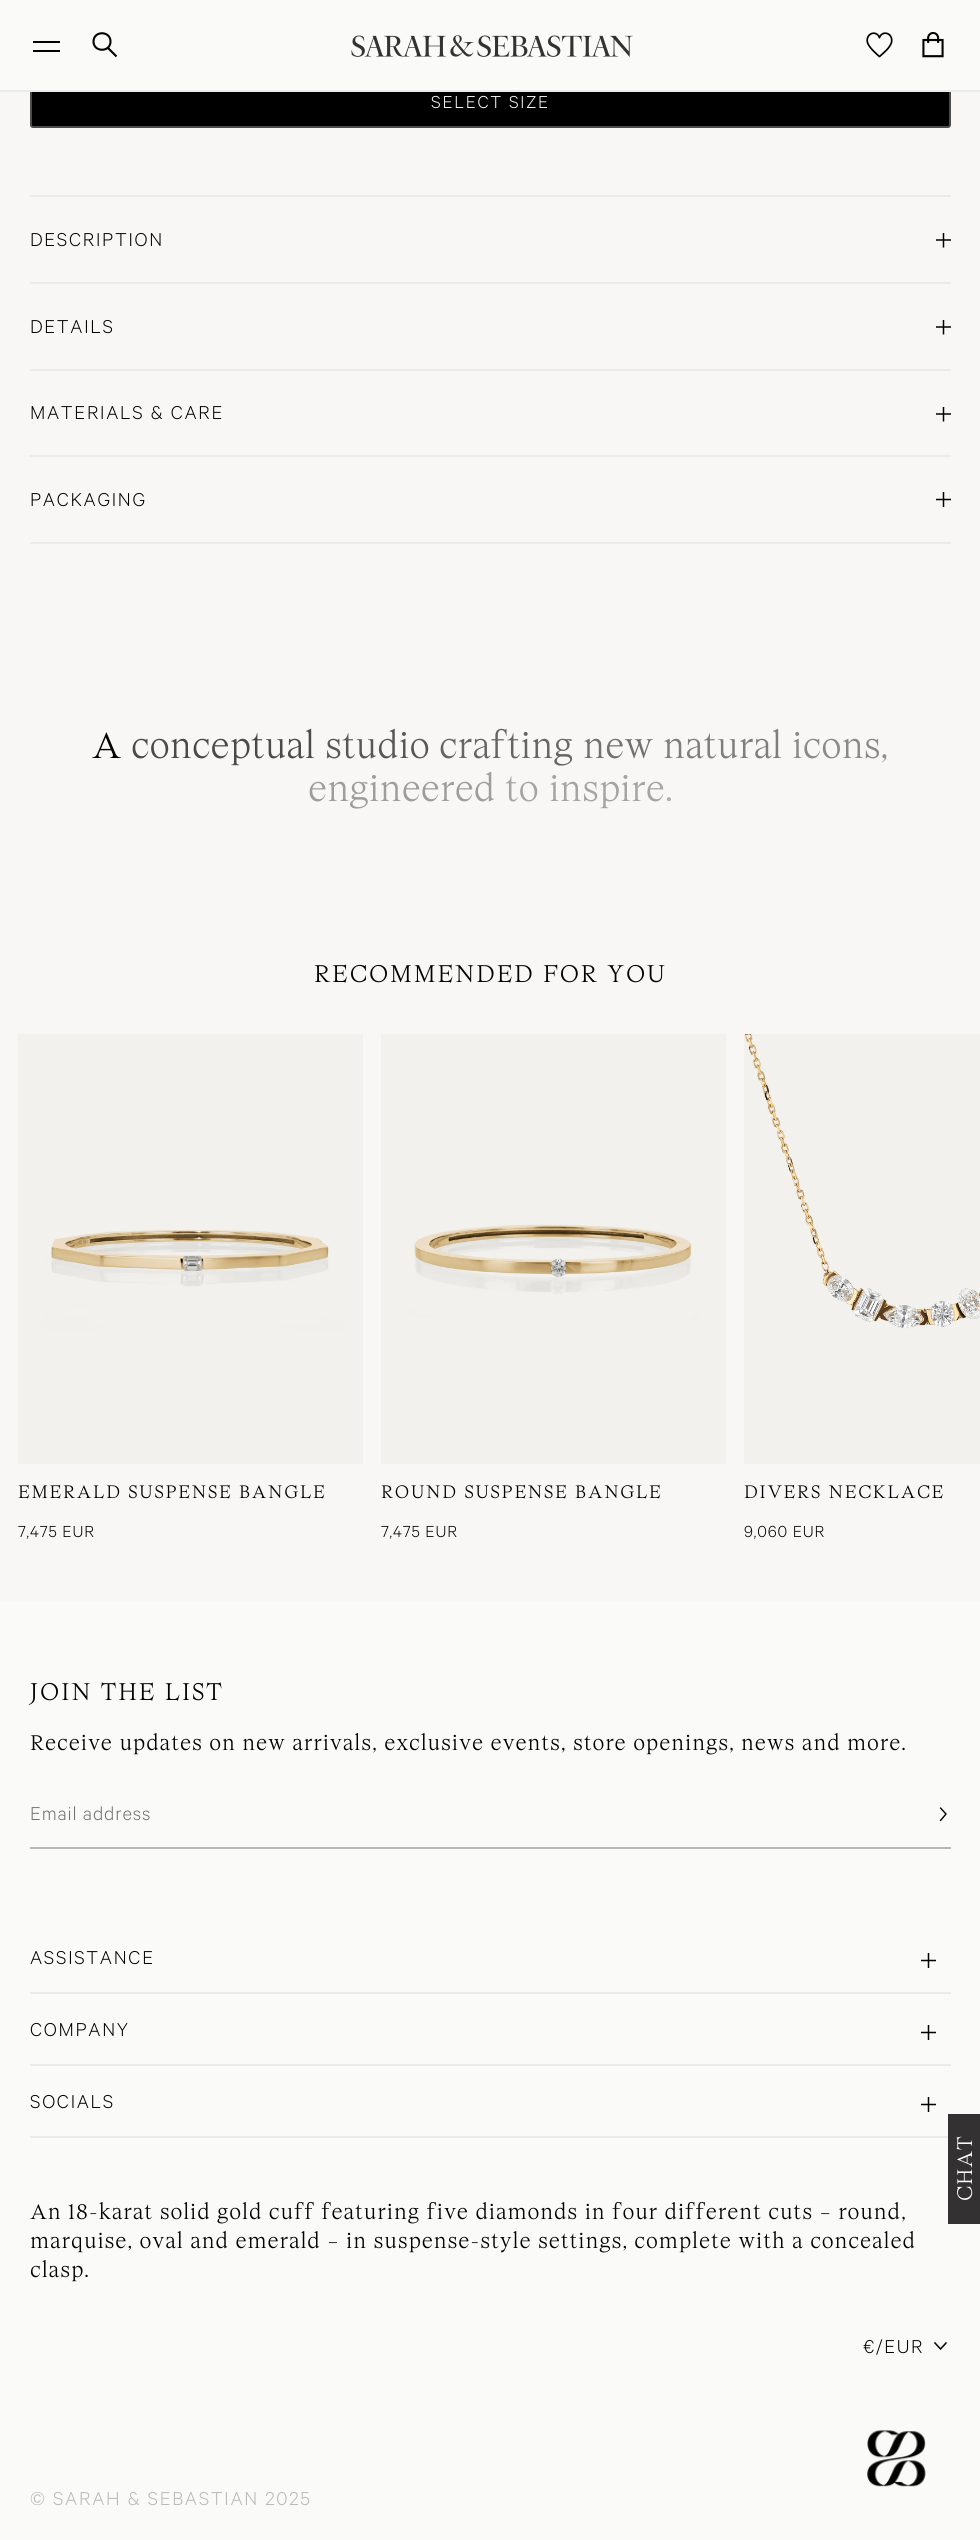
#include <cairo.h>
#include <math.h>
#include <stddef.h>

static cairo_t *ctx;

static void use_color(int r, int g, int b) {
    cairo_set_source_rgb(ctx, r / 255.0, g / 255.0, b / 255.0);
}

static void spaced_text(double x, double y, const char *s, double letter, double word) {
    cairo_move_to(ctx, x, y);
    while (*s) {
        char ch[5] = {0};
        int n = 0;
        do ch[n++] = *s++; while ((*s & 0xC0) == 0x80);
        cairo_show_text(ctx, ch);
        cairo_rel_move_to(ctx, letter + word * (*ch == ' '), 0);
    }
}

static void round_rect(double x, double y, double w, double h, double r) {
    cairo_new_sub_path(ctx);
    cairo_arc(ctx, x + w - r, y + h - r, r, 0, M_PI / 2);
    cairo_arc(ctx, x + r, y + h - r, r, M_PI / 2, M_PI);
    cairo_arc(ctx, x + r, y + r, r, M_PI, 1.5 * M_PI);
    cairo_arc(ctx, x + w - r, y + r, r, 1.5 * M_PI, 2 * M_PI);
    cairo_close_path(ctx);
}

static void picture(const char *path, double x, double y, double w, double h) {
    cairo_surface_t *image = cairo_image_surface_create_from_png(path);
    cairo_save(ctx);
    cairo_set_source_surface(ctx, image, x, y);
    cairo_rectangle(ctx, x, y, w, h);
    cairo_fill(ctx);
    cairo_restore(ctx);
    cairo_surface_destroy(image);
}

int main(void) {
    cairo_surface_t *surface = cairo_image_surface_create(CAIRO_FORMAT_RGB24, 980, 2540);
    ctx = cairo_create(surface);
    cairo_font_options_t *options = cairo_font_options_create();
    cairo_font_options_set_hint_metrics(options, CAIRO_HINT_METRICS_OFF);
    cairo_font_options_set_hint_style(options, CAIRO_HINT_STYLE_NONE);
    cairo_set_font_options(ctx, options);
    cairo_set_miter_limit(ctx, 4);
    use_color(248, 247, 245);
    cairo_paint(ctx);
    use_color(0, 0, 0);
    round_rect(31, 76, 919, 51, 2);
    cairo_fill_preserve(ctx);
    use_color(76, 76, 76);
    cairo_stroke(ctx);
    use_color(250, 250, 249);
    cairo_rectangle(ctx, 0, 0, 980, 90);
    cairo_fill(ctx);
    use_color(235, 235, 235);
    cairo_rectangle(ctx, 0, 90, 980, 2);
    cairo_fill(ctx);
    use_color(0, 0, 0);
    cairo_rectangle(ctx, 33, 41, 27, 2);
    cairo_fill(ctx);
    cairo_rectangle(ctx, 33, 50, 27, 2);
    cairo_fill(ctx);
    cairo_new_path(ctx);
    cairo_move_to(ctx, 107.5, 47.5);
    cairo_line_to(ctx, 116.5, 56.5);
    cairo_move_to(ctx, 110.5, 41.5);
    cairo_curve_to(ctx, 110.5, 52.5, 93.5, 52.5, 93.5, 41.5);
    cairo_curve_to(ctx, 93.5, 30.5, 110.5, 30.5, 110.5, 41.5);
    cairo_close_path(ctx);
    cairo_set_line_width(ctx, 2.1);
    cairo_stroke(ctx);
    picture("img1.png", 351, 35, 282, 22);
    picture("img2.png", 866, 32, 27, 26);
    picture("img3.png", 922, 32, 22, 26);
    cairo_select_font_face(ctx, "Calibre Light", CAIRO_FONT_SLANT_NORMAL, CAIRO_FONT_WEIGHT_NORMAL);
    cairo_set_font_size(ctx, 19.5);
    use_color(255, 255, 255);
    spaced_text(431, 108, "SELECT SIZE", 1.7, 0);
    use_color(235, 235, 235);
    cairo_rectangle(ctx, 30, 195, 921, 2);
    cairo_fill(ctx);
    cairo_rectangle(ctx, 30, 282, 921, 2);
    cairo_fill(ctx);
    cairo_set_font_size(ctx, 21);
    use_color(0, 0, 0);
    spaced_text(30, 246, "DESCRIPTION", 1.7, 0);
    cairo_save(ctx);
    cairo_rectangle(ctx, 936, 233, 15, 15);
    cairo_clip(ctx);
    cairo_new_path(ctx);
    cairo_move_to(ctx, 943.5, 232.5);
    cairo_line_to(ctx, 943.5, 247.5);
    cairo_set_line_width(ctx, 1.5);
    cairo_stroke(ctx);
    cairo_restore(ctx);
    cairo_set_source_rgba(ctx, 0, 0, 0, 0.75);
    cairo_rectangle(ctx, 936, 239, 15, 2);
    cairo_fill(ctx);
    use_color(235, 235, 235);
    cairo_rectangle(ctx, 30, 369, 921, 2);
    cairo_fill(ctx);
    use_color(0, 0, 0);
    spaced_text(30, 333, "DETAILS", 1.7, 0);
    cairo_save(ctx);
    cairo_rectangle(ctx, 936, 320, 15, 15);
    cairo_clip(ctx);
    cairo_new_path(ctx);
    cairo_move_to(ctx, 943.5, 319.5);
    cairo_line_to(ctx, 943.5, 334.5);
    cairo_set_line_width(ctx, 1.5);
    cairo_stroke(ctx);
    cairo_restore(ctx);
    cairo_set_source_rgba(ctx, 0, 0, 0, 0.75);
    cairo_rectangle(ctx, 936, 326, 15, 2);
    cairo_fill(ctx);
    use_color(235, 235, 235);
    cairo_rectangle(ctx, 30, 455, 921, 2);
    cairo_fill(ctx);
    use_color(0, 0, 0);
    spaced_text(30, 419, "MATERIALS & CARE", 1.7, 0);
    cairo_save(ctx);
    cairo_rectangle(ctx, 936, 407, 15, 15);
    cairo_clip(ctx);
    cairo_new_path(ctx);
    cairo_move_to(ctx, 943.5, 406.5);
    cairo_line_to(ctx, 943.5, 421.5);
    cairo_set_line_width(ctx, 1.5);
    cairo_stroke(ctx);
    cairo_restore(ctx);
    cairo_set_source_rgba(ctx, 0, 0, 0, 0.75);
    cairo_rectangle(ctx, 936, 413, 15, 2);
    cairo_fill(ctx);
    use_color(235, 235, 235);
    cairo_rectangle(ctx, 30, 542, 921, 2);
    cairo_fill(ctx);
    use_color(0, 0, 0);
    spaced_text(30, 506, "PACKAGING", 1.7, 0);
    cairo_new_path(ctx);
    cairo_move_to(ctx, 943.5, 492);
    cairo_line_to(ctx, 943.5, 507);
    cairo_move_to(ctx, 936, 499.5);
    cairo_line_to(ctx, 951, 499.5);
    cairo_set_line_width(ctx, 1.5);
    cairo_stroke(ctx);
    cairo_select_font_face(ctx, "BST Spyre", CAIRO_FONT_SLANT_NORMAL, CAIRO_FONT_WEIGHT_NORMAL);
    cairo_set_font_size(ctx, 36);
    cairo_move_to(ctx, 92, 758);
    cairo_show_text(ctx, "A");
    use_color(74, 74, 73);
    cairo_move_to(ctx, 131, 758);
    cairo_show_text(ctx, "conceptual");
    use_color(88, 87, 87);
    cairo_move_to(ctx, 325, 758);
    cairo_show_text(ctx, "studio");
    use_color(101, 101, 100);
    cairo_move_to(ctx, 439, 758);
    cairo_show_text(ctx, "crafting");
    use_color(114, 114, 113);
    cairo_move_to(ctx, 583, 758);
    cairo_show_text(ctx, "new");
    use_color(127, 126, 125);
    cairo_move_to(ctx, 663, 758);
    cairo_show_text(ctx, "natural");
    use_color(138, 138, 137);
    cairo_move_to(ctx, 792, 758);
    cairo_show_text(ctx, "icons");
    use_color(144, 143, 142);
    cairo_move_to(ctx, 880, 758);
    cairo_show_text(ctx, ",");
    use_color(158, 157, 156);
    cairo_move_to(ctx, 308, 801);
    cairo_show_text(ctx, "engineered");
    use_color(165, 164, 163);
    cairo_move_to(ctx, 505, 801);
    cairo_show_text(ctx, "to");
    cairo_move_to(ctx, 549, 801);
    cairo_show_text(ctx, "inspire");
    use_color(171, 171, 169);
    cairo_move_to(ctx, 665, 801);
    cairo_show_text(ctx, ".");
    cairo_set_font_size(ctx, 24);
    use_color(0, 0, 0);
    spaced_text(314, 982, "RECOMMENDED FOR YOU", 1.9, 0);
    picture("img4.png", 18, 1034, 345, 430);
    cairo_set_font_size(ctx, 18);
    spaced_text(18, 1498, "EMERALD SUSPENSE BANGLE", 1.7, 0);
    cairo_select_font_face(ctx, "Calibre Light", CAIRO_FONT_SLANT_NORMAL, CAIRO_FONT_WEIGHT_NORMAL);
    spaced_text(18, 1537, "7,475 EUR", 0.85, 0);
    picture("img5.png", 381, 1034, 345, 430);
    cairo_select_font_face(ctx, "BST Spyre", CAIRO_FONT_SLANT_NORMAL, CAIRO_FONT_WEIGHT_NORMAL);
    spaced_text(381, 1498, "ROUND SUSPENSE BANGLE", 1.7, 0);
    cairo_select_font_face(ctx, "Calibre Light", CAIRO_FONT_SLANT_NORMAL, CAIRO_FONT_WEIGHT_NORMAL);
    spaced_text(381, 1537, "7,475 EUR", 0.85, 0);
    picture("img6.png", 744, 1034, 236, 430);
    cairo_select_font_face(ctx, "BST Spyre", CAIRO_FONT_SLANT_NORMAL, CAIRO_FONT_WEIGHT_NORMAL);
    spaced_text(744, 1498, "DIVERS NECKLACE", 1.7, 0);
    cairo_select_font_face(ctx, "Calibre Light", CAIRO_FONT_SLANT_NORMAL, CAIRO_FONT_WEIGHT_NORMAL);
    spaced_text(744, 1537, "9,060 EUR", 0.85, 0);
    use_color(250, 250, 249);
    cairo_rectangle(ctx, 0, 1602, 980, 938);
    cairo_fill(ctx);
    cairo_select_font_face(ctx, "BST Spyre", CAIRO_FONT_SLANT_NORMAL, CAIRO_FONT_WEIGHT_NORMAL);
    cairo_set_font_size(ctx, 24);
    use_color(0, 0, 0);
    spaced_text(30, 1700, "JOIN THE LIST", 1.9, 0);
    cairo_set_font_size(ctx, 21);
    spaced_text(30, 1750, "Receive updates on new arrivals, exclusive events, store openings, news and more.", 0.85, 0);
    use_color(184, 184, 184);
    cairo_rectangle(ctx, 30, 1847, 921, 2);
    cairo_fill(ctx);
    cairo_select_font_face(ctx, "Calibre Light", CAIRO_FONT_SLANT_NORMAL, CAIRO_FONT_WEIGHT_NORMAL);
    use_color(114, 114, 113);
    spaced_text(30, 1820, "Email address", 0.85, 0);
    cairo_new_path(ctx);
    cairo_move_to(ctx, 940.5, 1808);
    cairo_line_to(ctx, 946, 1814);
    cairo_line_to(ctx, 940.5, 1820.5);
    use_color(0, 0, 0);
    cairo_set_line_width(ctx, 1.4);
    cairo_set_line_cap(ctx, CAIRO_LINE_CAP_ROUND);
    cairo_stroke(ctx);
    use_color(235, 235, 235);
    cairo_rectangle(ctx, 30, 1992, 921, 2);
    cairo_fill(ctx);
    use_color(0, 0, 0);
    spaced_text(30, 1964, "ASSISTANCE", 1.7, 0);
    cairo_new_path(ctx);
    cairo_move_to(ctx, 928.5, 1953);
    cairo_line_to(ctx, 928.5, 1968);
    cairo_move_to(ctx, 921, 1960.5);
    cairo_line_to(ctx, 936, 1960.5);
    cairo_set_line_width(ctx, 1.5);
    cairo_set_line_cap(ctx, CAIRO_LINE_CAP_BUTT);
    cairo_stroke(ctx);
    use_color(235, 235, 235);
    cairo_rectangle(ctx, 30, 2064, 921, 2);
    cairo_fill(ctx);
    use_color(0, 0, 0);
    spaced_text(30, 2036, "COMPANY", 1.7, 0);
    cairo_new_path(ctx);
    cairo_move_to(ctx, 928.5, 2025);
    cairo_line_to(ctx, 928.5, 2040);
    cairo_move_to(ctx, 921, 2032.5);
    cairo_line_to(ctx, 936, 2032.5);
    cairo_stroke(ctx);
    use_color(235, 235, 235);
    cairo_rectangle(ctx, 30, 2136, 921, 2);
    cairo_fill(ctx);
    use_color(0, 0, 0);
    spaced_text(30, 2108, "SOCIALS", 1.7, 0);
    cairo_new_path(ctx);
    cairo_move_to(ctx, 928.5, 2097);
    cairo_line_to(ctx, 928.5, 2112);
    cairo_move_to(ctx, 921, 2104.5);
    cairo_line_to(ctx, 936, 2104.5);
    cairo_stroke(ctx);
    cairo_select_font_face(ctx, "BST Spyre", CAIRO_FONT_SLANT_NORMAL, CAIRO_FONT_WEIGHT_NORMAL);
    spaced_text(30, 2219, "An 18-karat solid gold cuff featuring five diamonds in four different cuts – round,", 0.85, 0);
    spaced_text(30, 2248, "marquise, oval and emerald – in suspense-style settings, complete with a concealed", 0.85, 0);
    spaced_text(30, 2277, "clasp.", 0.85, 0);
    cairo_select_font_face(ctx, "Calibre Light", CAIRO_FONT_SLANT_NORMAL, CAIRO_FONT_WEIGHT_NORMAL);
    spaced_text(863, 2353, "€/EUR", 1.7, 0);
    cairo_new_path(ctx);
    cairo_move_to(ctx, 946, 2343);
    cairo_line_to(ctx, 940.5, 2349);
    cairo_line_to(ctx, 935, 2343);
    cairo_set_line_cap(ctx, CAIRO_LINE_CAP_SQUARE);
    cairo_stroke(ctx);
    picture("img7.png", 867, 2430, 59, 57);
    use_color(184, 184, 184);
    spaced_text(30, 2505, "© SARAH & SEBASTIAN 2025", 1.7, 0);
    use_color(51, 49, 50);
    cairo_rectangle(ctx, 948, 2114, 32, 110);
    cairo_fill(ctx);
    cairo_select_font_face(ctx, "BST Spyre", CAIRO_FONT_SLANT_NORMAL, CAIRO_FONT_WEIGHT_NORMAL);
    use_color(255, 255, 255);
    cairo_save(ctx);
    cairo_translate(ctx, 972, 2201);
    cairo_rotate(ctx, -90 * M_PI / 180);
    spaced_text(0, 0, "CHAT", 0.85, 0);
    cairo_restore(ctx);
    cairo_surface_write_to_png(surface, "result.png");
    cairo_font_options_destroy(options);
    cairo_destroy(ctx);
    cairo_surface_destroy(surface);
    return 0;
}
